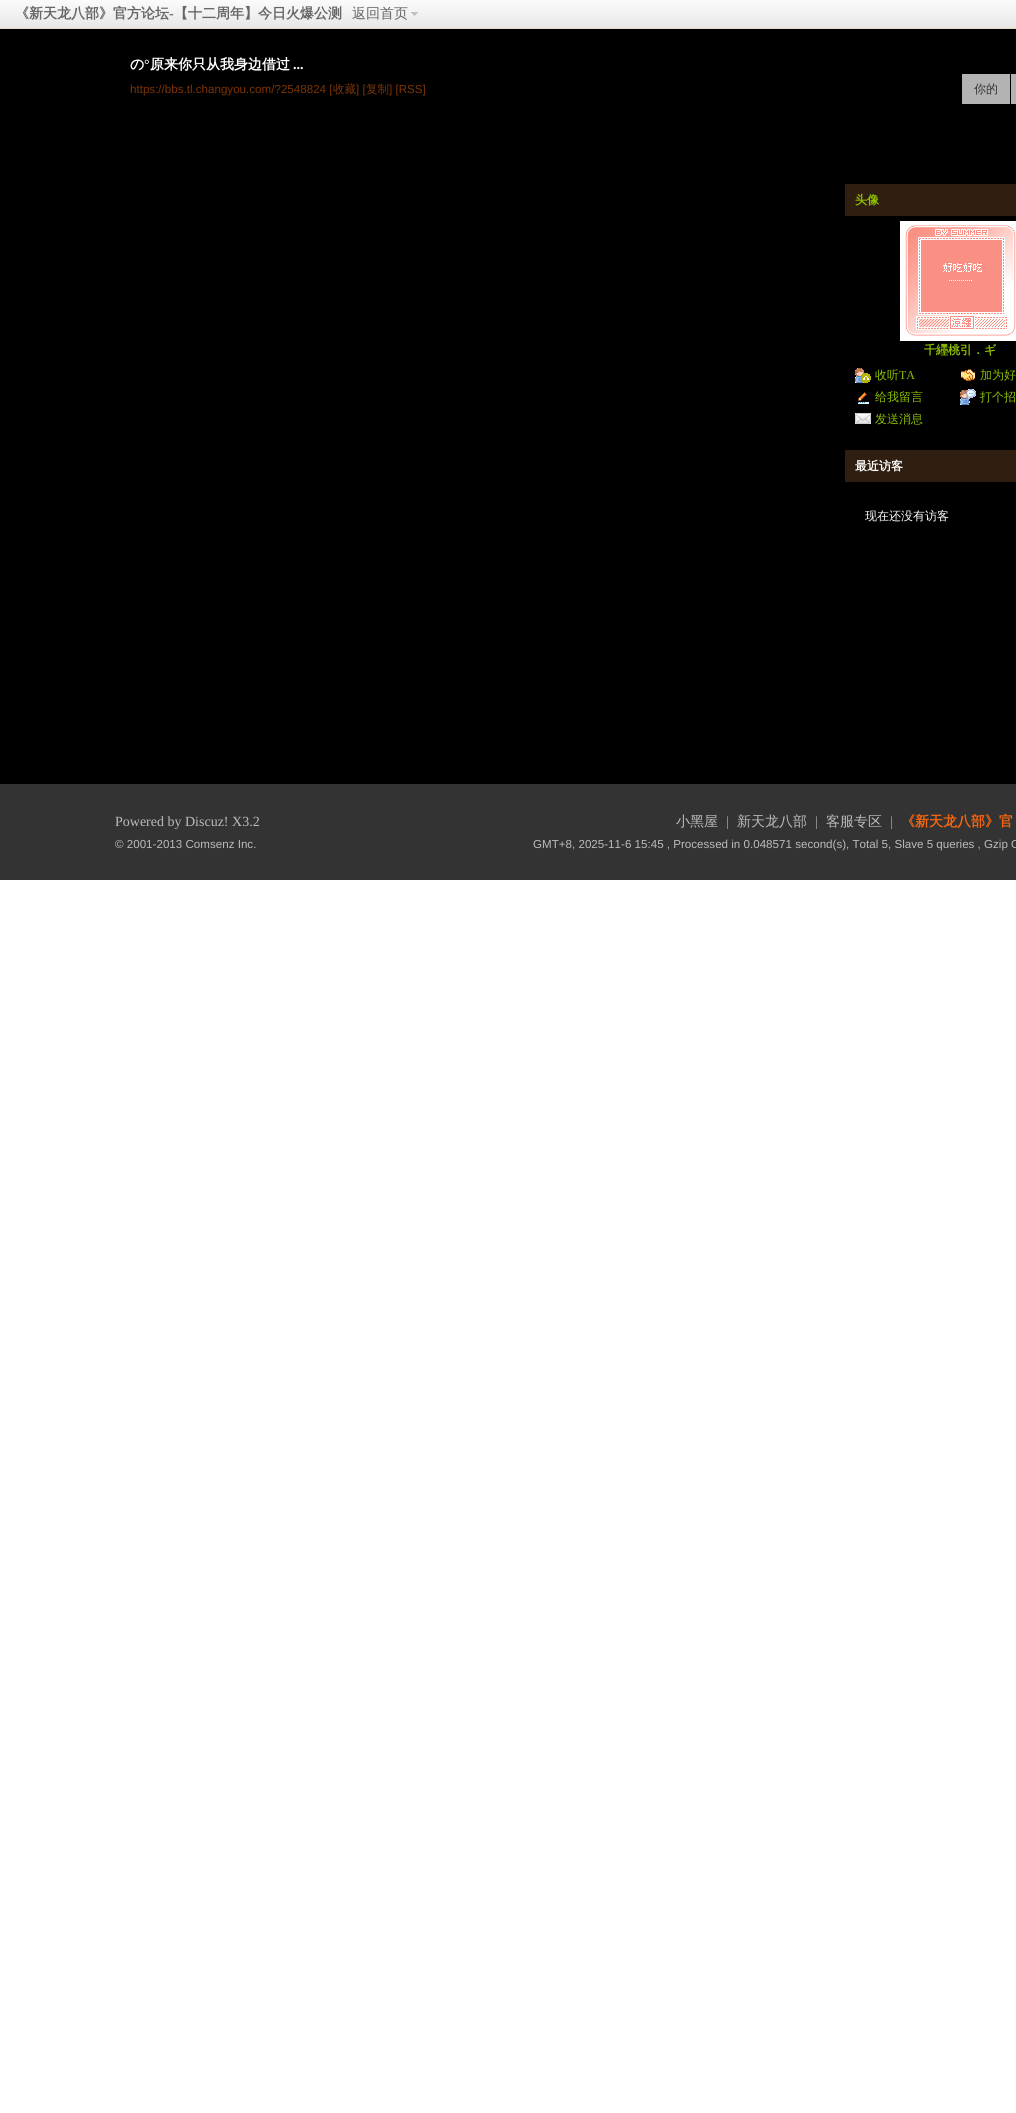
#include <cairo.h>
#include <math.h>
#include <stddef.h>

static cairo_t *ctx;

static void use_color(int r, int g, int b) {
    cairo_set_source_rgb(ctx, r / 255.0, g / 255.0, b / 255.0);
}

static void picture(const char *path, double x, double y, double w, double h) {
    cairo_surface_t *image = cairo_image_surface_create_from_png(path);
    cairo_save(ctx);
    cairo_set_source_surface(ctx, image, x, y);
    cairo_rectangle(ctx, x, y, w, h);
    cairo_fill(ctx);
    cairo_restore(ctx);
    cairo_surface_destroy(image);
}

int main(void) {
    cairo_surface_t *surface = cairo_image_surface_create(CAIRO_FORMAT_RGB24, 1016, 2113);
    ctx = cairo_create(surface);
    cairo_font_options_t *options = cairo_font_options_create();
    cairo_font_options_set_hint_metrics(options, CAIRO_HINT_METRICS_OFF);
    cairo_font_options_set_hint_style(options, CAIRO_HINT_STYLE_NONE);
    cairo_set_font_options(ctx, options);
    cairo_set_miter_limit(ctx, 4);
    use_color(255, 255, 255);
    cairo_paint(ctx);
    use_color(0, 0, 0);
    cairo_rectangle(ctx, 0, 29, 1016, 755);
    cairo_fill(ctx);
    picture("img1.png", 0, 0, 1016, 28);
    use_color(226, 218, 191);
    cairo_rectangle(ctx, 0, 28, 1016, 1);
    cairo_fill(ctx);
    cairo_select_font_face(ctx, "WenQuanYi Zen Hei", CAIRO_FONT_SLANT_NORMAL, CAIRO_FONT_WEIGHT_BOLD);
    cairo_set_font_size(ctx, 14);
    use_color(102, 102, 102);
    cairo_move_to(ctx, 15, 18);
    cairo_show_text(ctx, "《新天龙八部》官方论坛");
    cairo_select_font_face(ctx, "Liberation Serif", CAIRO_FONT_SLANT_NORMAL, CAIRO_FONT_WEIGHT_BOLD);
    cairo_move_to(ctx, 169, 18);
    cairo_show_text(ctx, "-");
    cairo_select_font_face(ctx, "WenQuanYi Zen Hei", CAIRO_FONT_SLANT_NORMAL, CAIRO_FONT_WEIGHT_BOLD);
    cairo_move_to(ctx, 174, 18);
    cairo_show_text(ctx, "【十二周年】今日火爆公测");
    picture("img2.png", 411, 12, 7, 4);
    cairo_select_font_face(ctx, "WenQuanYi Zen Hei Medium", CAIRO_FONT_SLANT_NORMAL, CAIRO_FONT_WEIGHT_NORMAL);
    cairo_move_to(ctx, 352, 18);
    cairo_show_text(ctx, "返回首页");
    cairo_select_font_face(ctx, "WenQuanYi Zen Hei", CAIRO_FONT_SLANT_NORMAL, CAIRO_FONT_WEIGHT_BOLD);
    use_color(255, 255, 255);
    cairo_move_to(ctx, 130, 69);
    cairo_show_text(ctx, "の");
    cairo_select_font_face(ctx, "Liberation Serif", CAIRO_FONT_SLANT_NORMAL, CAIRO_FONT_WEIGHT_BOLD);
    cairo_move_to(ctx, 144, 69);
    cairo_show_text(ctx, "°");
    cairo_select_font_face(ctx, "WenQuanYi Zen Hei", CAIRO_FONT_SLANT_NORMAL, CAIRO_FONT_WEIGHT_BOLD);
    cairo_move_to(ctx, 150, 69);
    cairo_show_text(ctx, "原来你只从我身边借过");
    cairo_select_font_face(ctx, "Liberation Serif", CAIRO_FONT_SLANT_NORMAL, CAIRO_FONT_WEIGHT_BOLD);
    cairo_move_to(ctx, 293, 69);
    cairo_show_text(ctx, "...");
    cairo_select_font_face(ctx, "Liberation Sans", CAIRO_FONT_SLANT_NORMAL, CAIRO_FONT_WEIGHT_NORMAL);
    cairo_set_font_size(ctx, 11.6);
    use_color(123, 53, 7);
    cairo_move_to(ctx, 130, 93);
    cairo_show_text(ctx, "https://bbs.tl.changyou.com/?2548824 [");
    cairo_select_font_face(ctx, "WenQuanYi Zen Hei Medium", CAIRO_FONT_SLANT_NORMAL, CAIRO_FONT_WEIGHT_NORMAL);
    cairo_move_to(ctx, 333, 93);
    cairo_show_text(ctx, "收藏");
    cairo_select_font_face(ctx, "Liberation Sans", CAIRO_FONT_SLANT_NORMAL, CAIRO_FONT_WEIGHT_NORMAL);
    cairo_move_to(ctx, 356, 93);
    cairo_show_text(ctx, "] [");
    cairo_select_font_face(ctx, "WenQuanYi Zen Hei Medium", CAIRO_FONT_SLANT_NORMAL, CAIRO_FONT_WEIGHT_NORMAL);
    cairo_move_to(ctx, 366, 93);
    cairo_show_text(ctx, "复制");
    cairo_select_font_face(ctx, "Liberation Sans", CAIRO_FONT_SLANT_NORMAL, CAIRO_FONT_WEIGHT_NORMAL);
    cairo_move_to(ctx, 389, 93);
    cairo_show_text(ctx, "] [RSS]");
    use_color(179, 179, 179);
    cairo_rectangle(ctx, 962, 74, 48, 30);
    cairo_fill(ctx);
    cairo_select_font_face(ctx, "WenQuanYi Zen Hei Medium", CAIRO_FONT_SLANT_NORMAL, CAIRO_FONT_WEIGHT_NORMAL);
    cairo_set_font_size(ctx, 12);
    use_color(51, 51, 51);
    cairo_move_to(ctx, 974, 93);
    cairo_show_text(ctx, "你的");
    use_color(179, 179, 179);
    cairo_rectangle(ctx, 1011, 74, 5, 30);
    cairo_fill(ctx);
    use_color(48, 30, 16);
    cairo_rectangle(ctx, 845, 184, 171, 32);
    cairo_fill(ctx);
    cairo_select_font_face(ctx, "WenQuanYi Zen Hei", CAIRO_FONT_SLANT_NORMAL, CAIRO_FONT_WEIGHT_BOLD);
    use_color(141, 190, 0);
    cairo_move_to(ctx, 855, 204);
    cairo_show_text(ctx, "头像");
    picture("img3.png", 900, 221, 116, 120);
    cairo_move_to(ctx, 924, 354);
    cairo_show_text(ctx, "千纆桃引．ギ");
    picture("img4.png", 855, 368, 16, 15);
    cairo_select_font_face(ctx, "WenQuanYi Zen Hei Medium", CAIRO_FONT_SLANT_NORMAL, CAIRO_FONT_WEIGHT_NORMAL);
    cairo_move_to(ctx, 875, 379);
    cairo_show_text(ctx, "收听");
    cairo_select_font_face(ctx, "Liberation Serif", CAIRO_FONT_SLANT_NORMAL, CAIRO_FONT_WEIGHT_NORMAL);
    cairo_move_to(ctx, 899, 379);
    cairo_show_text(ctx, "TA");
    picture("img5.png", 961, 369, 14, 12);
    cairo_select_font_face(ctx, "WenQuanYi Zen Hei Medium", CAIRO_FONT_SLANT_NORMAL, CAIRO_FONT_WEIGHT_NORMAL);
    cairo_move_to(ctx, 980, 379);
    cairo_show_text(ctx, "加为好");
    picture("img6.png", 858, 392, 11, 12);
    cairo_move_to(ctx, 875, 401);
    cairo_show_text(ctx, "给我留言");
    picture("img7.png", 960, 389, 16, 16);
    cairo_move_to(ctx, 980, 401);
    cairo_show_text(ctx, "打个招");
    picture("img8.png", 855, 413, 16, 11);
    cairo_move_to(ctx, 875, 423);
    cairo_show_text(ctx, "发送消息");
    use_color(48, 30, 16);
    cairo_rectangle(ctx, 845, 450, 171, 32);
    cairo_fill(ctx);
    cairo_select_font_face(ctx, "WenQuanYi Zen Hei", CAIRO_FONT_SLANT_NORMAL, CAIRO_FONT_WEIGHT_BOLD);
    use_color(255, 255, 255);
    cairo_move_to(ctx, 855, 470);
    cairo_show_text(ctx, "最近访客");
    cairo_select_font_face(ctx, "WenQuanYi Zen Hei Medium", CAIRO_FONT_SLANT_NORMAL, CAIRO_FONT_WEIGHT_NORMAL);
    cairo_move_to(ctx, 865, 520);
    cairo_show_text(ctx, "现在还没有访客");
    use_color(51, 51, 51);
    cairo_rectangle(ctx, 0, 784, 1016, 96);
    cairo_fill(ctx);
    cairo_select_font_face(ctx, "Liberation Serif", CAIRO_FONT_SLANT_NORMAL, CAIRO_FONT_WEIGHT_NORMAL);
    cairo_set_font_size(ctx, 14);
    use_color(187, 187, 187);
    cairo_move_to(ctx, 115, 826);
    cairo_show_text(ctx, "Powered by Discuz! X3.2");
    cairo_select_font_face(ctx, "Liberation Sans", CAIRO_FONT_SLANT_NORMAL, CAIRO_FONT_WEIGHT_NORMAL);
    cairo_set_font_size(ctx, 11.6);
    cairo_move_to(ctx, 115, 848);
    cairo_show_text(ctx, "© 2001-2013 Comsenz Inc.");
    cairo_select_font_face(ctx, "WenQuanYi Zen Hei Medium", CAIRO_FONT_SLANT_NORMAL, CAIRO_FONT_WEIGHT_NORMAL);
    cairo_set_font_size(ctx, 14);
    cairo_move_to(ctx, 676, 826);
    cairo_show_text(ctx, "小黑屋");
    cairo_select_font_face(ctx, "Liberation Serif", CAIRO_FONT_SLANT_NORMAL, CAIRO_FONT_WEIGHT_NORMAL);
    use_color(170, 170, 170);
    cairo_move_to(ctx, 726, 826);
    cairo_show_text(ctx, "|");
    cairo_select_font_face(ctx, "WenQuanYi Zen Hei Medium", CAIRO_FONT_SLANT_NORMAL, CAIRO_FONT_WEIGHT_NORMAL);
    use_color(187, 187, 187);
    cairo_move_to(ctx, 737, 826);
    cairo_show_text(ctx, "新天龙八部");
    cairo_select_font_face(ctx, "Liberation Serif", CAIRO_FONT_SLANT_NORMAL, CAIRO_FONT_WEIGHT_NORMAL);
    use_color(170, 170, 170);
    cairo_move_to(ctx, 815, 826);
    cairo_show_text(ctx, "|");
    cairo_select_font_face(ctx, "WenQuanYi Zen Hei Medium", CAIRO_FONT_SLANT_NORMAL, CAIRO_FONT_WEIGHT_NORMAL);
    use_color(187, 187, 187);
    cairo_move_to(ctx, 826, 826);
    cairo_show_text(ctx, "客服专区");
    cairo_select_font_face(ctx, "Liberation Serif", CAIRO_FONT_SLANT_NORMAL, CAIRO_FONT_WEIGHT_NORMAL);
    use_color(170, 170, 170);
    cairo_move_to(ctx, 890, 826);
    cairo_show_text(ctx, "|");
    cairo_select_font_face(ctx, "WenQuanYi Zen Hei", CAIRO_FONT_SLANT_NORMAL, CAIRO_FONT_WEIGHT_BOLD);
    use_color(243, 101, 17);
    cairo_move_to(ctx, 901, 826);
    cairo_show_text(ctx, "《新天龙八部》官");
    cairo_select_font_face(ctx, "Liberation Sans", CAIRO_FONT_SLANT_NORMAL, CAIRO_FONT_WEIGHT_NORMAL);
    cairo_set_font_size(ctx, 11.6);
    use_color(187, 187, 187);
    cairo_move_to(ctx, 533, 848);
    cairo_show_text(ctx, "GMT+8, 2025-11-6 15:45 , Processed in 0.048571 second(s), Total 5, Slave 5 queries , Gzip O");
    cairo_surface_write_to_png(surface, "result.png");
    cairo_font_options_destroy(options);
    cairo_destroy(ctx);
    cairo_surface_destroy(surface);
    return 0;
}
